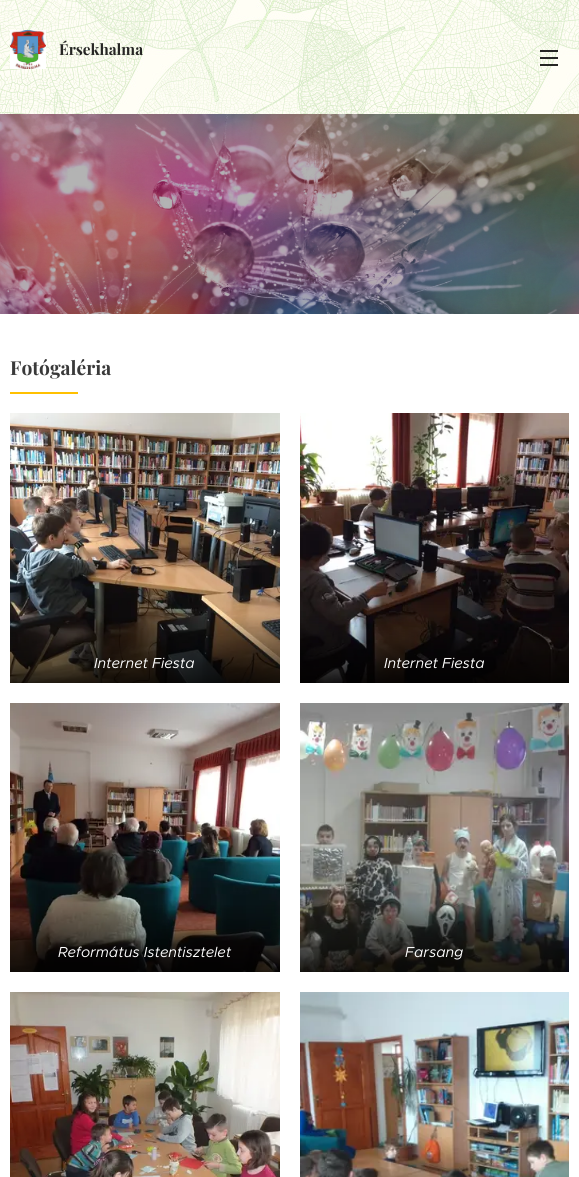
#include <cairo.h>
#include <math.h>
#include <stddef.h>

static cairo_t *ctx;

static void use_color(int r, int g, int b) {
    cairo_set_source_rgb(ctx, r / 255.0, g / 255.0, b / 255.0);
}

static void picture(const char *path, double x, double y, double w, double h) {
    cairo_surface_t *image = cairo_image_surface_create_from_png(path);
    cairo_save(ctx);
    cairo_set_source_surface(ctx, image, x, y);
    cairo_rectangle(ctx, x, y, w, h);
    cairo_fill(ctx);
    cairo_restore(ctx);
    cairo_surface_destroy(image);
}

int main(void) {
    cairo_surface_t *surface = cairo_image_surface_create(CAIRO_FORMAT_RGB24, 579, 1177);
    ctx = cairo_create(surface);
    cairo_font_options_t *options = cairo_font_options_create();
    cairo_font_options_set_hint_metrics(options, CAIRO_HINT_METRICS_OFF);
    cairo_font_options_set_hint_style(options, CAIRO_HINT_STYLE_NONE);
    cairo_set_font_options(ctx, options);
    cairo_set_miter_limit(ctx, 4);
    use_color(255, 255, 255);
    cairo_paint(ctx);
    picture("img1.png", 0, 0, 579, 114);
    picture("img2.png", 10, 30, 36, 39);
    cairo_select_font_face(ctx, "Playfair Display", CAIRO_FONT_SLANT_NORMAL, CAIRO_FONT_WEIGHT_BOLD);
    cairo_set_font_size(ctx, 15.25);
    use_color(37, 37, 35);
    cairo_move_to(ctx, 59, 55);
    cairo_show_text(ctx, "Érsekhalma");
    cairo_set_source_rgba(ctx, 0, 0, 0, 0.85);
    cairo_rectangle(ctx, 540, 57, 18, 2);
    cairo_fill(ctx);
    cairo_rectangle(ctx, 540, 50, 18, 2);
    cairo_fill(ctx);
    cairo_rectangle(ctx, 540, 64, 18, 2);
    cairo_fill(ctx);
    picture("img3.png", 0, 114, 579, 200);
    cairo_set_font_size(ctx, 19.25);
    use_color(57, 57, 57);
    cairo_move_to(ctx, 10, 375);
    cairo_show_text(ctx, "Fotógaléria");
    use_color(255, 192, 0);
    cairo_rectangle(ctx, 10, 392, 68, 2);
    cairo_fill(ctx);
    picture("img4.png", 10, 413, 270, 270);
    cairo_select_font_face(ctx, "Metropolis", CAIRO_FONT_SLANT_ITALIC, CAIRO_FONT_WEIGHT_NORMAL);
    cairo_set_font_size(ctx, 14.6);
    use_color(255, 255, 255);
    cairo_move_to(ctx, 94, 668);
    cairo_show_text(ctx, "Internet Fiesta");
    picture("img5.png", 300, 413, 269, 270);
    cairo_move_to(ctx, 384, 668);
    cairo_show_text(ctx, "Internet Fiesta");
    picture("img6.png", 10, 703, 270, 269);
    cairo_move_to(ctx, 58, 957);
    cairo_show_text(ctx, "Református Istentisztelet");
    picture("img7.png", 300, 703, 269, 269);
    cairo_move_to(ctx, 405, 957);
    cairo_show_text(ctx, "Farsang");
    picture("img8.png", 10, 992, 270, 185);
    picture("img9.png", 300, 992, 269, 185);
    cairo_surface_write_to_png(surface, "result.png");
    cairo_font_options_destroy(options);
    cairo_destroy(ctx);
    cairo_surface_destroy(surface);
    return 0;
}
